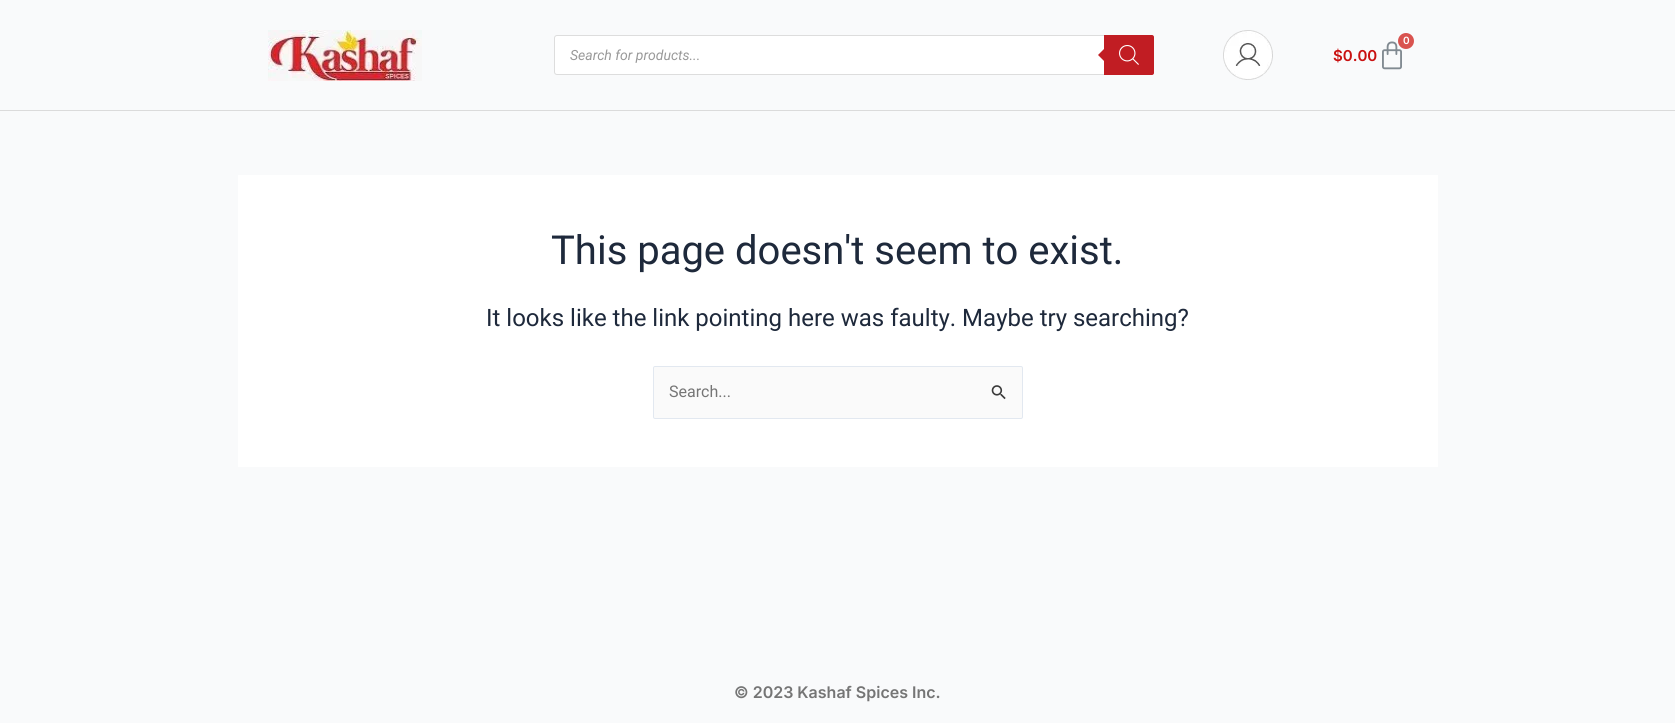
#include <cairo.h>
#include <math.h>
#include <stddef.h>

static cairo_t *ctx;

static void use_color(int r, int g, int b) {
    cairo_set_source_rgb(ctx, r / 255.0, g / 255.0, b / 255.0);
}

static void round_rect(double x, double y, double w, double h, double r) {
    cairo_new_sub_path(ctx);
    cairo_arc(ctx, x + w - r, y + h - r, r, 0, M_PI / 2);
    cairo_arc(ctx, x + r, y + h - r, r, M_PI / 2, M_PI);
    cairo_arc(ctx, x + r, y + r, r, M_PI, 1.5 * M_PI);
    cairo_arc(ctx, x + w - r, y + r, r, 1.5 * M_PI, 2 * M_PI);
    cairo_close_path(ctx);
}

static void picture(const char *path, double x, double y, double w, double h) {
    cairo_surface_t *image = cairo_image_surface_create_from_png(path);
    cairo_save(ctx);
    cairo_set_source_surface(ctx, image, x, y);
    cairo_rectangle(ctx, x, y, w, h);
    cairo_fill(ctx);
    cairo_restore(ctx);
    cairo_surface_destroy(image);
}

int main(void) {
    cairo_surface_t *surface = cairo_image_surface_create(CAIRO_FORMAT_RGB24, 1675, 723);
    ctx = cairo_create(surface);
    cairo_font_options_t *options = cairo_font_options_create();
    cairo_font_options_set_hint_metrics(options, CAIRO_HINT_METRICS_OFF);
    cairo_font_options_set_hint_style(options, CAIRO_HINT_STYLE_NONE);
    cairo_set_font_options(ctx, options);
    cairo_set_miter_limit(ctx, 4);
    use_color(249, 250, 251);
    cairo_paint(ctx);
    use_color(219, 219, 219);
    cairo_rectangle(ctx, 0, 110, 1675, 1);
    cairo_fill(ctx);
    picture("img1.png", 268, 30, 154, 51);
    use_color(255, 255, 255);
    round_rect(554.5, 35.5, 599, 39, 2.5);
    cairo_fill_preserve(ctx);
    use_color(221, 221, 221);
    cairo_set_line_width(ctx, 1);
    cairo_stroke(ctx);
    cairo_select_font_face(ctx, "Roboto", CAIRO_FONT_SLANT_ITALIC, CAIRO_FONT_WEIGHT_NORMAL);
    cairo_set_font_size(ctx, 14);
    use_color(153, 153, 153);
    cairo_move_to(ctx, 570, 60);
    cairo_show_text(ctx, "Search for products...");
    use_color(193, 29, 35);
    cairo_new_path(ctx);
    cairo_move_to(ctx, 1104, 35);
    cairo_line_to(ctx, 1152, 35);
    cairo_curve_to(ctx, 1153, 35, 1154, 36, 1154, 37);
    cairo_line_to(ctx, 1154, 73);
    cairo_curve_to(ctx, 1154, 74, 1153, 75, 1152, 75);
    cairo_line_to(ctx, 1104, 75);
    cairo_close_path(ctx);
    cairo_fill(ctx);
    cairo_new_path(ctx);
    cairo_move_to(ctx, 1106, 47);
    cairo_line_to(ctx, 1106, 63);
    cairo_line_to(ctx, 1098, 55);
    cairo_close_path(ctx);
    cairo_fill(ctx);
    picture("img2.png", 1119, 45, 20, 20);
    picture("img3.png", 1223, 30, 50, 50);
    picture("img4.png", 1382, 41, 20, 29);
    use_color(217, 83, 79);
    cairo_arc(ctx, 1406, 41, 8, 0, 2 * M_PI);
    cairo_fill(ctx);
    cairo_select_font_face(ctx, "Inter SemiBold", CAIRO_FONT_SLANT_NORMAL, CAIRO_FONT_WEIGHT_NORMAL);
    cairo_set_font_size(ctx, 10);
    use_color(255, 255, 255);
    cairo_move_to(ctx, 1403, 44);
    cairo_show_text(ctx, "0");
    cairo_set_font_size(ctx, 15);
    use_color(201, 17, 17);
    cairo_move_to(ctx, 1333, 61);
    cairo_show_text(ctx, "$0.00");
    use_color(255, 255, 255);
    cairo_rectangle(ctx, 238, 175, 1200, 292);
    cairo_fill(ctx);
    cairo_select_font_face(ctx, "Roboto", CAIRO_FONT_SLANT_NORMAL, CAIRO_FONT_WEIGHT_NORMAL);
    cairo_set_font_size(ctx, 40);
    use_color(30, 41, 59);
    cairo_move_to(ctx, 551, 264);
    cairo_show_text(ctx, "This page doesn't seem to exist.");
    cairo_set_font_size(ctx, 24);
    cairo_move_to(ctx, 486, 326);
    cairo_show_text(ctx, "It looks like the link pointing here was faulty. Maybe try searching?");
    use_color(250, 250, 250);
    round_rect(653.5, 366.5, 369, 52, 1.5);
    cairo_fill_preserve(ctx);
    use_color(226, 232, 240);
    cairo_stroke(ctx);
    cairo_set_font_size(ctx, 16);
    use_color(117, 117, 117);
    cairo_move_to(ctx, 669, 397);
    cairo_show_text(ctx, "Search...");
    picture("img5.png", 991, 385, 15, 15);
    cairo_select_font_face(ctx, "Inter SemiBold", CAIRO_FONT_SLANT_NORMAL, CAIRO_FONT_WEIGHT_NORMAL);
    cairo_move_to(ctx, 734, 698);
    cairo_show_text(ctx, "© 2023 Kashaf Spices Inc.");
    cairo_surface_write_to_png(surface, "result.png");
    cairo_font_options_destroy(options);
    cairo_destroy(ctx);
    cairo_surface_destroy(surface);
    return 0;
}
